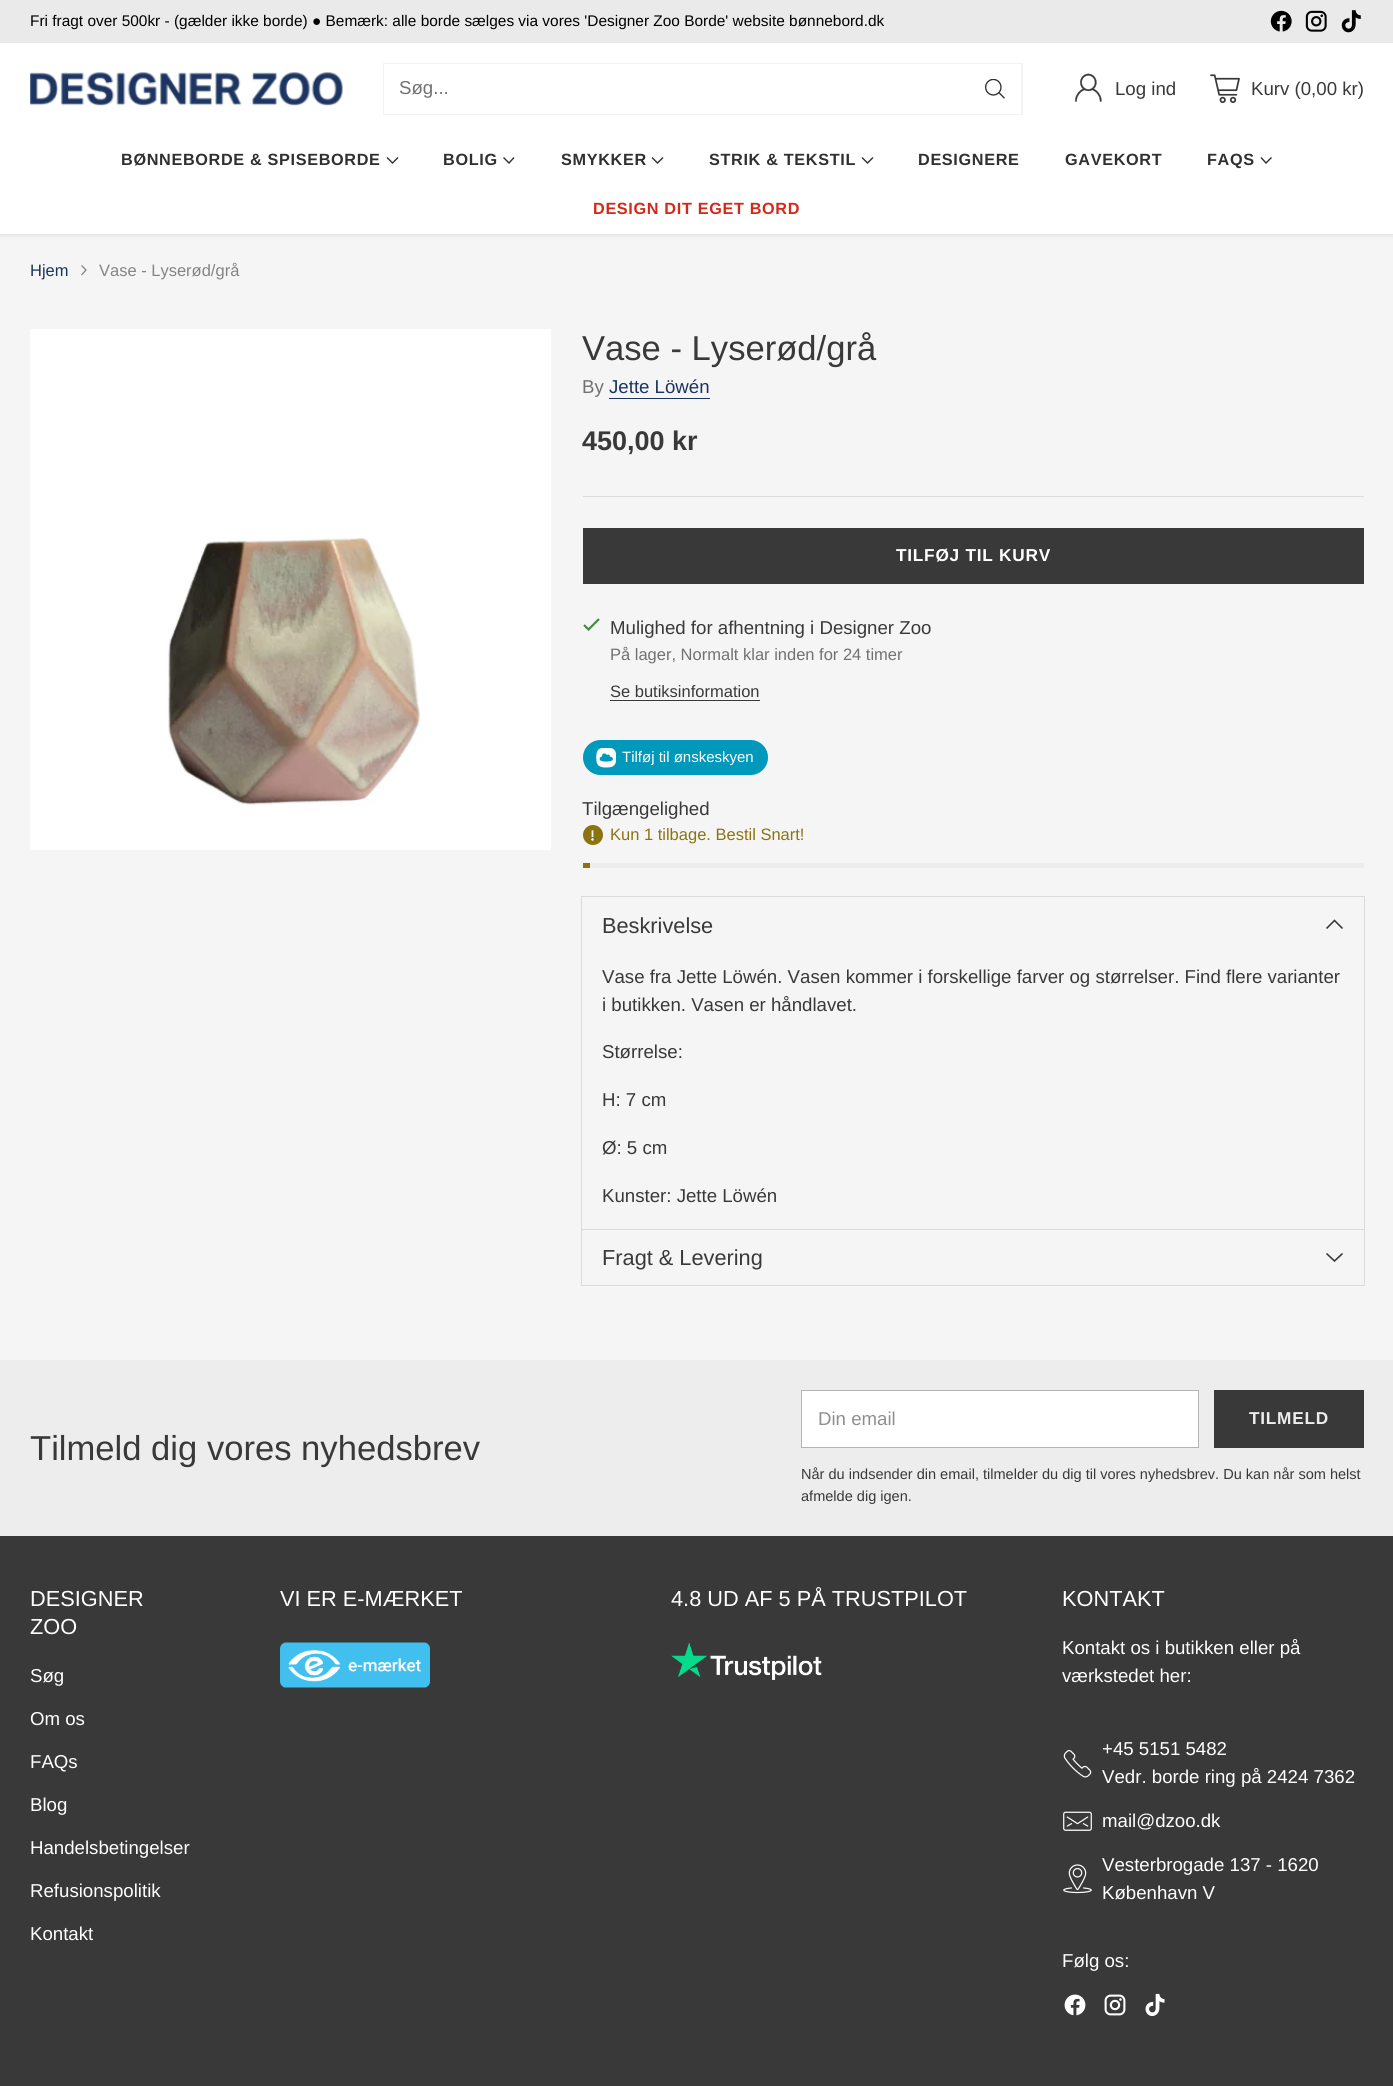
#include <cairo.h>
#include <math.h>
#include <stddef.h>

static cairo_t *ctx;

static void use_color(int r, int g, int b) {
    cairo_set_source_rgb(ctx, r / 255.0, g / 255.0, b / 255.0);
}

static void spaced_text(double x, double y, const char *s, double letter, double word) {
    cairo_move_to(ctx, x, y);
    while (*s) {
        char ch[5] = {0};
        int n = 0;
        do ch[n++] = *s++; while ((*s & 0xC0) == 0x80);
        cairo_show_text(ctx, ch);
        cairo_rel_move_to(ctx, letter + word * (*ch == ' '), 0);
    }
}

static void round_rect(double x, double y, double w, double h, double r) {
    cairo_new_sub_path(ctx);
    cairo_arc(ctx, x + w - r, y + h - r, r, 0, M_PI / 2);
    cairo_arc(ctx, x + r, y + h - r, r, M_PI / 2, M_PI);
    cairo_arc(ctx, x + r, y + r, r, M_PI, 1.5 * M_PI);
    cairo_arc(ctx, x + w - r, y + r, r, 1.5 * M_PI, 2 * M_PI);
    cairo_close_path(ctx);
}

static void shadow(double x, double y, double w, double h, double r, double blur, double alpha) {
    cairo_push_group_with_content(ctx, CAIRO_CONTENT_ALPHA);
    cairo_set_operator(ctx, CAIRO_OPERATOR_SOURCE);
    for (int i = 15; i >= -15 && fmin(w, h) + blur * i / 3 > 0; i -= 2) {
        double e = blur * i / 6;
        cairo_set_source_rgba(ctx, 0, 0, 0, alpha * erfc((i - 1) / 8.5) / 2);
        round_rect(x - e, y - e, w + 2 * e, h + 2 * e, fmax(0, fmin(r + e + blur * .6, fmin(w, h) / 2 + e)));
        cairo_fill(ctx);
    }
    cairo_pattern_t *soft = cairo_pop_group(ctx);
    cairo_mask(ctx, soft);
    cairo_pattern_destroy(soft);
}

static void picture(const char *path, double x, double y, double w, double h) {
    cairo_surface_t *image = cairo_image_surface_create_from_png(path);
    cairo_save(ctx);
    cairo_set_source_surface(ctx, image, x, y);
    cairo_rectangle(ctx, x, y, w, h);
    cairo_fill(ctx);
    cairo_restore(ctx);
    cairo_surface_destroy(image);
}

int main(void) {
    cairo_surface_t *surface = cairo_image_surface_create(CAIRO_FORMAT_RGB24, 1393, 2086);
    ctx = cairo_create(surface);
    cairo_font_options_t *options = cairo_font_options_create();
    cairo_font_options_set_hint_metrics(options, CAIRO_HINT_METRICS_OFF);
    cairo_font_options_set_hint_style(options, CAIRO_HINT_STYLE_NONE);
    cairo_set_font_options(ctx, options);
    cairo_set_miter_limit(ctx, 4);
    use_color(245, 245, 246);
    cairo_paint(ctx);
    use_color(234, 234, 234);
    cairo_rectangle(ctx, 0, 0, 1393, 43);
    cairo_fill(ctx);
    cairo_select_font_face(ctx, "Liberation Sans", CAIRO_FONT_SLANT_NORMAL, CAIRO_FONT_WEIGHT_NORMAL);
    cairo_set_font_size(ctx, 15.42);
    use_color(0, 0, 0);
    cairo_move_to(ctx, 30, 26);
    cairo_show_text(ctx, "Fri fragt over 500kr - (gælder ikke borde) ● Bemærk: alle borde sælges via vores 'Designer Zoo Borde' website bønnebord.dk");
    picture("img1.png", 1270, 10, 22, 22);
    picture("img2.png", 1305, 10, 22, 22);
    picture("img3.png", 1341, 10, 20, 23);
    use_color(0, 0, 0);
    shadow(0, 135, 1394, 99, 0, 3, 0.15);
    use_color(255, 255, 255);
    cairo_rectangle(ctx, 0, 43, 1393, 191);
    cairo_fill(ctx);
    picture("img4.png", 30, 72, 313, 34);
    use_color(245, 245, 246);
    cairo_rectangle(ctx, 1021, 64, 1, 50);
    cairo_fill(ctx);
    cairo_rectangle(ctx, 383.5, 63.5, 639, 51);
    use_color(242, 242, 242);
    cairo_set_line_width(ctx, 1);
    cairo_stroke(ctx);
    cairo_set_font_size(ctx, 18.65);
    use_color(113, 113, 114);
    cairo_move_to(ctx, 399, 94);
    cairo_show_text(ctx, "Søg...");
    picture("img5.png", 985, 79, 20, 20);
    picture("img6.png", 1075, 73, 27, 29);
    use_color(57, 57, 57);
    cairo_move_to(ctx, 1115, 95);
    cairo_show_text(ctx, "Log ind");
    picture("img7.png", 1210, 74, 30, 30);
    cairo_move_to(ctx, 1251, 95);
    cairo_show_text(ctx, "Kurv (0,00 kr)");
    cairo_select_font_face(ctx, "Liberation Sans", CAIRO_FONT_SLANT_NORMAL, CAIRO_FONT_WEIGHT_BOLD);
    cairo_set_font_size(ctx, 16.25);
    use_color(48, 48, 48);
    spaced_text(121, 165, "BØNNEBORDE & SPISEBORDE", 0.65, 0);
    cairo_new_path(ctx);
    cairo_move_to(ctx, 387, 157.5);
    cairo_line_to(ctx, 392.5, 163);
    cairo_line_to(ctx, 398, 157.5);
    cairo_set_line_width(ctx, 1.4);
    cairo_stroke(ctx);
    spaced_text(443, 165, "BOLIG", 0.65, 0);
    cairo_new_path(ctx);
    cairo_move_to(ctx, 503.5, 157.5);
    cairo_line_to(ctx, 509, 163);
    cairo_line_to(ctx, 514, 157.5);
    cairo_stroke(ctx);
    spaced_text(561, 165, "SMYKKER", 0.65, 0);
    cairo_new_path(ctx);
    cairo_move_to(ctx, 652, 157.5);
    cairo_line_to(ctx, 657.5, 163);
    cairo_line_to(ctx, 663, 157.5);
    cairo_stroke(ctx);
    spaced_text(709, 165, "STRIK & TEKSTIL", 0.65, 0);
    cairo_new_path(ctx);
    cairo_move_to(ctx, 862, 157.5);
    cairo_line_to(ctx, 867.5, 163);
    cairo_line_to(ctx, 873, 157.5);
    cairo_stroke(ctx);
    spaced_text(918, 165, "DESIGNERE", 0.65, 0);
    spaced_text(1065, 165, "GAVEKORT", 0.65, 0);
    spaced_text(1207, 165, "FAQS", 0.65, 0);
    cairo_new_path(ctx);
    cairo_move_to(ctx, 1261, 157.5);
    cairo_line_to(ctx, 1266, 163);
    cairo_line_to(ctx, 1271.5, 157.5);
    cairo_stroke(ctx);
    use_color(210, 41, 25);
    spaced_text(593, 214, "DESIGN DIT EGET BORD", 0.65, 0);
    cairo_select_font_face(ctx, "Liberation Sans", CAIRO_FONT_SLANT_NORMAL, CAIRO_FONT_WEIGHT_NORMAL);
    cairo_set_font_size(ctx, 16.5);
    use_color(27, 52, 96);
    cairo_move_to(ctx, 30, 276);
    cairo_show_text(ctx, "Hjem");
    cairo_new_path(ctx);
    cairo_move_to(ctx, 81.5, 275);
    cairo_line_to(ctx, 86, 270);
    cairo_line_to(ctx, 81.5, 265.5);
    use_color(132, 132, 133);
    cairo_set_line_width(ctx, 1.3);
    cairo_stroke(ctx);
    cairo_move_to(ctx, 99, 276);
    cairo_show_text(ctx, "Vase - Lyserød/grå");
    picture("img8.png", 30, 329, 521, 521);
    use_color(219, 219, 219);
    cairo_rectangle(ctx, 583, 496, 781, 1);
    cairo_fill(ctx);
    cairo_set_font_size(ctx, 34.6);
    use_color(57, 57, 57);
    cairo_move_to(ctx, 582, 360);
    cairo_show_text(ctx, "Vase - Lyserød/grå");
    cairo_set_font_size(ctx, 18.65);
    use_color(113, 113, 114);
    cairo_move_to(ctx, 582, 393);
    cairo_show_text(ctx, "By");
    use_color(27, 52, 96);
    cairo_move_to(ctx, 609, 393);
    cairo_show_text(ctx, "Jette Löwén");
    cairo_rectangle(ctx, 609, 398, 101, 1);
    cairo_fill(ctx);
    cairo_select_font_face(ctx, "Liberation Sans", CAIRO_FONT_SLANT_NORMAL, CAIRO_FONT_WEIGHT_BOLD);
    cairo_set_font_size(ctx, 27);
    use_color(57, 57, 57);
    cairo_move_to(ctx, 582, 450);
    cairo_show_text(ctx, "450,00 kr");
    cairo_rectangle(ctx, 583, 528, 781, 56);
    cairo_fill(ctx);
    cairo_set_font_size(ctx, 17.25);
    use_color(255, 255, 255);
    spaced_text(896, 561, "TILFØJ TIL KURV", 0.75, 0);
    cairo_new_path(ctx);
    cairo_move_to(ctx, 584, 625);
    cairo_line_to(ctx, 588.5, 629.5);
    cairo_line_to(ctx, 599, 619);
    use_color(71, 137, 71);
    cairo_set_line_width(ctx, 2.2);
    cairo_stroke(ctx);
    cairo_select_font_face(ctx, "Liberation Sans", CAIRO_FONT_SLANT_NORMAL, CAIRO_FONT_WEIGHT_NORMAL);
    cairo_set_font_size(ctx, 18.65);
    use_color(57, 57, 57);
    cairo_move_to(ctx, 610, 634);
    cairo_show_text(ctx, "Mulighed for afhentning i Designer Zoo");
    cairo_set_font_size(ctx, 16.5);
    use_color(113, 113, 114);
    cairo_move_to(ctx, 610, 660);
    cairo_show_text(ctx, "På lager, Normalt klar inden for 24 timer");
    use_color(57, 57, 57);
    cairo_move_to(ctx, 610, 697);
    cairo_show_text(ctx, "Se butiksinformation");
    cairo_rectangle(ctx, 610, 700, 150, 1);
    cairo_fill(ctx);
    use_color(0, 153, 187);
    round_rect(583, 740, 185, 35, 17.5);
    cairo_fill(ctx);
    picture("img9.png", 596, 748, 20, 20);
    cairo_set_font_size(ctx, 15);
    use_color(255, 255, 255);
    cairo_move_to(ctx, 622, 762);
    cairo_show_text(ctx, "Tilføj til ønskeskyen");
    cairo_set_font_size(ctx, 18.65);
    use_color(57, 57, 57);
    cairo_move_to(ctx, 582, 815);
    cairo_show_text(ctx, "Tilgængelighed");
    use_color(139, 115, 16);
    cairo_new_path(ctx);
    cairo_arc(ctx, 593, 835, 10, 0, 2 * M_PI);
    cairo_fill(ctx);
    picture("img10.png", 591, 830, 3, 11);
    cairo_set_font_size(ctx, 16.5);
    cairo_move_to(ctx, 610, 840);
    cairo_show_text(ctx, "Kun 1 tilbage. Bestil Snart!");
    use_color(237, 237, 239);
    cairo_rectangle(ctx, 583, 863, 781, 5);
    cairo_fill(ctx);
    use_color(139, 115, 16);
    cairo_rectangle(ctx, 583, 863, 7, 5);
    cairo_fill(ctx);
    cairo_rectangle(ctx, 581.5, 896.5, 783, 334);
    use_color(219, 219, 219);
    cairo_set_line_width(ctx, 1);
    cairo_stroke(ctx);
    cairo_set_font_size(ctx, 21.75);
    use_color(57, 57, 57);
    cairo_move_to(ctx, 602, 933);
    cairo_show_text(ctx, "Beskrivelse");
    cairo_new_path(ctx);
    cairo_move_to(ctx, 1326.5, 928.5);
    cairo_line_to(ctx, 1334.5, 920.5);
    cairo_line_to(ctx, 1342.5, 928.5);
    cairo_set_line_width(ctx, 1.6);
    cairo_stroke(ctx);
    cairo_set_font_size(ctx, 18.65);
    cairo_move_to(ctx, 602, 983);
    cairo_show_text(ctx, "Vase fra Jette Löwén. Vasen kommer i forskellige farver og størrelser. Find flere varianter");
    cairo_move_to(ctx, 602, 1011);
    cairo_show_text(ctx, "i butikken. Vasen er håndlavet.");
    cairo_move_to(ctx, 602, 1058);
    cairo_show_text(ctx, "Størrelse:");
    cairo_move_to(ctx, 602, 1106);
    cairo_show_text(ctx, "H: 7 cm");
    cairo_move_to(ctx, 602, 1154);
    cairo_show_text(ctx, "Ø: 5 cm");
    cairo_move_to(ctx, 602, 1202);
    cairo_show_text(ctx, "Kunster: Jette Löwén");
    cairo_rectangle(ctx, 581.5, 1229.5, 783, 56);
    use_color(219, 219, 219);
    cairo_set_line_width(ctx, 1);
    cairo_stroke(ctx);
    use_color(245, 245, 246);
    cairo_rectangle(ctx, 583, 1230, 781, 1);
    cairo_fill(ctx);
    cairo_set_font_size(ctx, 21.75);
    use_color(57, 57, 57);
    cairo_move_to(ctx, 602, 1265);
    cairo_show_text(ctx, "Fragt & Levering");
    cairo_new_path(ctx);
    cairo_move_to(ctx, 1326.5, 1253.5);
    cairo_line_to(ctx, 1334.5, 1261);
    cairo_line_to(ctx, 1342.5, 1253.5);
    cairo_set_line_width(ctx, 1.6);
    cairo_stroke(ctx);
    use_color(237, 237, 237);
    cairo_rectangle(ctx, 0, 1360, 1393, 176);
    cairo_fill(ctx);
    cairo_set_font_size(ctx, 34.6);
    use_color(57, 57, 57);
    cairo_move_to(ctx, 30, 1460);
    cairo_show_text(ctx, "Tilmeld dig vores nyhedsbrev");
    use_color(255, 255, 255);
    cairo_rectangle(ctx, 801.5, 1390.5, 397, 57);
    cairo_fill_preserve(ctx);
    use_color(180, 180, 180);
    cairo_set_line_width(ctx, 1);
    cairo_stroke(ctx);
    cairo_set_font_size(ctx, 18.65);
    use_color(143, 143, 143);
    cairo_move_to(ctx, 818, 1425);
    cairo_show_text(ctx, "Din email");
    use_color(57, 57, 57);
    cairo_rectangle(ctx, 1214, 1390, 150, 58);
    cairo_fill(ctx);
    cairo_select_font_face(ctx, "Liberation Sans", CAIRO_FONT_SLANT_NORMAL, CAIRO_FONT_WEIGHT_BOLD);
    cairo_set_font_size(ctx, 17.25);
    use_color(237, 237, 237);
    spaced_text(1249, 1424, "TILMELD", 0.75, 0);
    cairo_select_font_face(ctx, "Liberation Sans", CAIRO_FONT_SLANT_NORMAL, CAIRO_FONT_WEIGHT_NORMAL);
    cairo_set_font_size(ctx, 14.55);
    use_color(57, 57, 57);
    cairo_move_to(ctx, 801, 1479);
    cairo_show_text(ctx, "Når du indsender din email, tilmelder du dig til vores nyhedsbrev. Du kan når som helst");
    cairo_move_to(ctx, 801, 1501);
    cairo_show_text(ctx, "afmelde dig igen.");
    cairo_rectangle(ctx, 0, 1536, 1393, 550);
    cairo_fill(ctx);
    cairo_set_font_size(ctx, 21.75);
    use_color(255, 255, 255);
    cairo_move_to(ctx, 30, 1606);
    cairo_show_text(ctx, "DESIGNER");
    cairo_move_to(ctx, 30, 1634);
    cairo_show_text(ctx, "ZOO");
    cairo_set_font_size(ctx, 18.65);
    cairo_move_to(ctx, 30, 1682);
    cairo_show_text(ctx, "Søg");
    cairo_move_to(ctx, 30, 1725);
    cairo_show_text(ctx, "Om os");
    cairo_move_to(ctx, 30, 1768);
    cairo_show_text(ctx, "FAQs");
    cairo_move_to(ctx, 30, 1811);
    cairo_show_text(ctx, "Blog");
    cairo_move_to(ctx, 30, 1854);
    cairo_show_text(ctx, "Handelsbetingelser");
    cairo_move_to(ctx, 30, 1897);
    cairo_show_text(ctx, "Refusionspolitik");
    cairo_move_to(ctx, 30, 1940);
    cairo_show_text(ctx, "Kontakt");
    cairo_set_font_size(ctx, 21.75);
    cairo_move_to(ctx, 280, 1606);
    cairo_show_text(ctx, "VI ER E-MÆRKET");
    picture("img11.png", 280, 1642, 150, 46);
    cairo_move_to(ctx, 671, 1606);
    cairo_show_text(ctx, "4.8 UD AF 5 PÅ TRUSTPILOT");
    picture("img12.png", 671, 1642, 151, 38);
    cairo_move_to(ctx, 1062, 1606);
    cairo_show_text(ctx, "KONTAKT");
    cairo_set_font_size(ctx, 18.65);
    cairo_move_to(ctx, 1062, 1654);
    cairo_show_text(ctx, "Kontakt os i butikken eller på");
    cairo_move_to(ctx, 1062, 1682);
    cairo_show_text(ctx, "værkstedet her:");
    picture("img13.png", 1063, 1750, 29, 28);
    cairo_move_to(ctx, 1102, 1755);
    cairo_show_text(ctx, "+45 5151 5482");
    cairo_move_to(ctx, 1102, 1783);
    cairo_show_text(ctx, "Vedr. borde ring på 2424 7362");
    picture("img14.png", 1063, 1811, 29, 20);
    cairo_move_to(ctx, 1102, 1827);
    cairo_show_text(ctx, "mail@dzoo.dk");
    picture("img15.png", 1063, 1864, 29, 30);
    cairo_move_to(ctx, 1102, 1871);
    cairo_show_text(ctx, "Vesterbrogade 137 - 1620");
    cairo_move_to(ctx, 1102, 1899);
    cairo_show_text(ctx, "København V");
    cairo_move_to(ctx, 1062, 1967);
    cairo_show_text(ctx, "Følg os:");
    picture("img16.png", 1064, 1994, 22, 22);
    picture("img17.png", 1104, 1994, 22, 22);
    picture("img18.png", 1145, 1993, 20, 24);
    cairo_surface_write_to_png(surface, "result.png");
    cairo_font_options_destroy(options);
    cairo_destroy(ctx);
    cairo_surface_destroy(surface);
    return 0;
}
